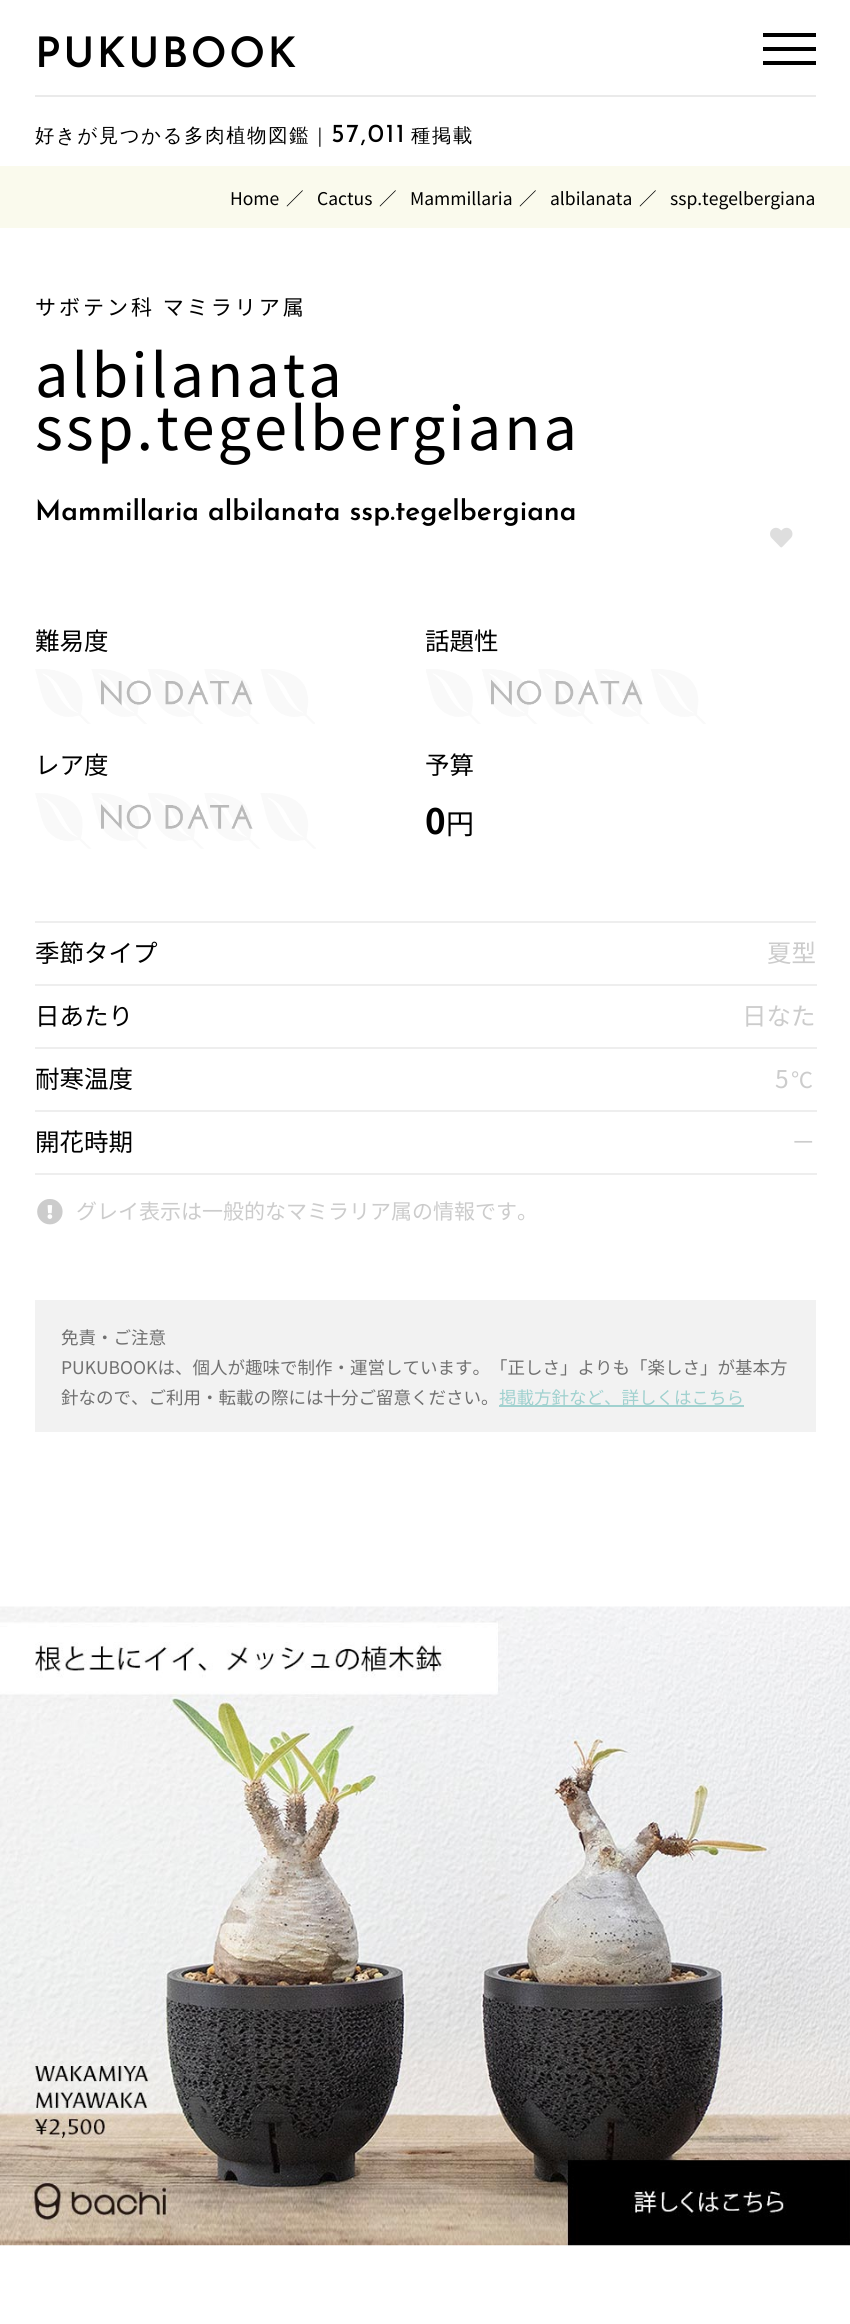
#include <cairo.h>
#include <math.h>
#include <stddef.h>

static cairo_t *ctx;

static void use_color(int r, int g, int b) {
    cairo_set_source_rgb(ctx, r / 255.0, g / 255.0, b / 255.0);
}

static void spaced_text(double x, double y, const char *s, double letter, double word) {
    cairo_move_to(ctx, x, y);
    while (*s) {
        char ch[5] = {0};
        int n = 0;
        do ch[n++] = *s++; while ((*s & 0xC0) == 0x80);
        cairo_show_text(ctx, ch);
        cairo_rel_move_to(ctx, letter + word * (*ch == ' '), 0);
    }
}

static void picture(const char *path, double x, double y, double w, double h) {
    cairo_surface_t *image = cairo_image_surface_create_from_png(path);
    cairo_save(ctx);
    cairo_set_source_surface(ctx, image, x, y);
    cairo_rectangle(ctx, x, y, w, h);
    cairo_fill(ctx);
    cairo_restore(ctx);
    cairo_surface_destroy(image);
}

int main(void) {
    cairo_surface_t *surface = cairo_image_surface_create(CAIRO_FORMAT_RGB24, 850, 2324);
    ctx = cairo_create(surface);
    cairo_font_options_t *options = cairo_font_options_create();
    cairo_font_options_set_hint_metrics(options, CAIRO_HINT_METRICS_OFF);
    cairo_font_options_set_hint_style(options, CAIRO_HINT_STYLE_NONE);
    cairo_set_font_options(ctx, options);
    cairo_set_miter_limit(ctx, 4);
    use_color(255, 255, 255);
    cairo_paint(ctx);
    cairo_select_font_face(ctx, "Josefin Sans SemiBold", CAIRO_FONT_SLANT_NORMAL, CAIRO_FONT_WEIGHT_NORMAL);
    cairo_set_font_size(ctx, 42);
    use_color(0, 0, 0);
    spaced_text(35, 67, "PUKUBOOK", 2.5, 0);
    use_color(234, 234, 234);
    cairo_rectangle(ctx, 35, 95, 781, 2);
    cairo_fill(ctx);
    cairo_select_font_face(ctx, "WenQuanYi Zen Hei Medium", CAIRO_FONT_SLANT_NORMAL, CAIRO_FONT_WEIGHT_NORMAL);
    cairo_set_font_size(ctx, 19.25);
    use_color(0, 0, 0);
    spaced_text(35, 142, "好きが見つかる多肉植物図鑑｜", 1.75, 0);
    cairo_select_font_face(ctx, "Josefin Sans", CAIRO_FONT_SLANT_NORMAL, CAIRO_FONT_WEIGHT_NORMAL);
    cairo_set_font_size(ctx, 26);
    spaced_text(331, 142, "57,011", 1.75, 0);
    cairo_select_font_face(ctx, "WenQuanYi Zen Hei Medium", CAIRO_FONT_SLANT_NORMAL, CAIRO_FONT_WEIGHT_NORMAL);
    cairo_set_font_size(ctx, 19.25);
    spaced_text(411, 142, "種掲載", 1.75, 0);
    cairo_rectangle(ctx, 763, 33, 53, 4);
    cairo_fill(ctx);
    cairo_rectangle(ctx, 763, 47, 53, 4);
    cairo_fill(ctx);
    cairo_rectangle(ctx, 763, 61, 53, 4);
    cairo_fill(ctx);
    use_color(250, 250, 237);
    cairo_rectangle(ctx, 0, 166, 850, 62);
    cairo_fill(ctx);
    cairo_select_font_face(ctx, "Noto Sans JP", CAIRO_FONT_SLANT_NORMAL, CAIRO_FONT_WEIGHT_NORMAL);
    cairo_set_font_size(ctx, 17.5);
    use_color(0, 0, 0);
    cairo_move_to(ctx, 230, 205);
    cairo_show_text(ctx, "Home");
    cairo_move_to(ctx, 286, 205);
    cairo_show_text(ctx, "／");
    cairo_move_to(ctx, 317, 205);
    cairo_show_text(ctx, "Cactus");
    cairo_move_to(ctx, 379, 205);
    cairo_show_text(ctx, "／");
    cairo_move_to(ctx, 410, 205);
    cairo_show_text(ctx, "Mammillaria");
    cairo_move_to(ctx, 519, 205);
    cairo_show_text(ctx, "／");
    cairo_move_to(ctx, 550, 205);
    cairo_show_text(ctx, "albilanata");
    cairo_move_to(ctx, 639, 205);
    cairo_show_text(ctx, "／");
    cairo_move_to(ctx, 670, 205);
    cairo_show_text(ctx, "ssp.tegelbergiana");
    cairo_set_font_size(ctx, 21);
    spaced_text(35, 315, "サボテン科 マミラリア属", 3, 0);
    cairo_set_font_size(ctx, 59.5);
    spaced_text(35, 397, "albilanata", 3, 0);
    spaced_text(35, 450, "ssp.tegelbergiana", 3, 0);
    cairo_select_font_face(ctx, "Josefin Sans SemiBold", CAIRO_FONT_SLANT_NORMAL, CAIRO_FONT_WEIGHT_NORMAL);
    cairo_set_font_size(ctx, 28);
    cairo_move_to(ctx, 35, 520);
    cairo_show_text(ctx, "Mammillaria albilanata ssp.tegelbergiana");
    picture("img1.png", 770, 527, 23, 21);
    cairo_select_font_face(ctx, "Noto Sans JP", CAIRO_FONT_SLANT_NORMAL, CAIRO_FONT_WEIGHT_NORMAL);
    cairo_set_font_size(ctx, 24.5);
    cairo_move_to(ctx, 35, 650);
    cairo_show_text(ctx, "難易度");
    picture("img2.png", 35, 669, 280, 55);
    cairo_move_to(ctx, 425, 650);
    cairo_show_text(ctx, "話題性");
    picture("img3.png", 426, 669, 280, 55);
    cairo_move_to(ctx, 35, 774);
    cairo_show_text(ctx, "レア度");
    picture("img4.png", 35, 793, 281, 56);
    cairo_move_to(ctx, 425, 774);
    cairo_show_text(ctx, "予算");
    cairo_select_font_face(ctx, "Noto Sans JP", CAIRO_FONT_SLANT_NORMAL, CAIRO_FONT_WEIGHT_BOLD);
    cairo_set_font_size(ctx, 35);
    cairo_move_to(ctx, 425, 834);
    cairo_show_text(ctx, "0");
    cairo_select_font_face(ctx, "Noto Sans JP", CAIRO_FONT_SLANT_NORMAL, CAIRO_FONT_WEIGHT_NORMAL);
    cairo_set_font_size(ctx, 28);
    cairo_move_to(ctx, 446, 834);
    cairo_show_text(ctx, "円");
    use_color(238, 238, 238);
    cairo_rectangle(ctx, 35, 921, 781, 2);
    cairo_fill(ctx);
    cairo_rectangle(ctx, 35, 984, 782, 2);
    cairo_fill(ctx);
    cairo_set_font_size(ctx, 24.5);
    use_color(0, 0, 0);
    cairo_move_to(ctx, 35, 962);
    cairo_show_text(ctx, "季節タイプ");
    use_color(204, 204, 204);
    cairo_move_to(ctx, 767, 962);
    cairo_show_text(ctx, "夏型");
    use_color(238, 238, 238);
    cairo_rectangle(ctx, 35, 1047, 782, 2);
    cairo_fill(ctx);
    use_color(0, 0, 0);
    cairo_move_to(ctx, 35, 1025);
    cairo_show_text(ctx, "日あたり");
    use_color(204, 204, 204);
    cairo_move_to(ctx, 742, 1025);
    cairo_show_text(ctx, "日なた");
    use_color(238, 238, 238);
    cairo_rectangle(ctx, 35, 1110, 782, 2);
    cairo_fill(ctx);
    use_color(0, 0, 0);
    cairo_move_to(ctx, 35, 1088);
    cairo_show_text(ctx, "耐寒温度");
    use_color(204, 204, 204);
    cairo_move_to(ctx, 775, 1088);
    cairo_show_text(ctx, "5");
    cairo_set_font_size(ctx, 22);
    cairo_move_to(ctx, 791, 1088);
    cairo_show_text(ctx, "℃");
    use_color(238, 238, 238);
    cairo_rectangle(ctx, 35, 1173, 782, 2);
    cairo_fill(ctx);
    cairo_set_font_size(ctx, 24.5);
    use_color(0, 0, 0);
    cairo_move_to(ctx, 35, 1151);
    cairo_show_text(ctx, "開花時期");
    use_color(204, 204, 204);
    cairo_move_to(ctx, 791, 1151);
    cairo_show_text(ctx, "－");
    picture("img5.png", 37, 1199, 26, 26);
    cairo_set_font_size(ctx, 21);
    cairo_move_to(ctx, 76, 1219);
    cairo_show_text(ctx, "グレイ表示は一般的なマミラリア属の情報です。");
    use_color(242, 242, 242);
    cairo_rectangle(ctx, 35, 1300, 781, 132);
    cairo_fill(ctx);
    cairo_set_font_size(ctx, 17.5);
    use_color(112, 112, 112);
    cairo_move_to(ctx, 61, 1344);
    cairo_show_text(ctx, "免責・ご注意");
    cairo_move_to(ctx, 61, 1374);
    cairo_show_text(ctx, "PUKUBOOKは、個人が趣味で制作・運営しています。「正しさ」よりも「楽しさ」が基本方");
    cairo_move_to(ctx, 61, 1404);
    cairo_show_text(ctx, "針なので、ご利用・転載の際には十分ご留意ください。");
    use_color(160, 209, 207);
    cairo_rectangle(ctx, 499, 1405, 245, 2);
    cairo_fill(ctx);
    cairo_move_to(ctx, 499, 1404);
    cairo_show_text(ctx, "掲載方針など、詳しくはこちら");
    picture("img6.png", 0, 1606, 850, 640);
    cairo_surface_write_to_png(surface, "result.png");
    cairo_font_options_destroy(options);
    cairo_destroy(ctx);
    cairo_surface_destroy(surface);
    return 0;
}
